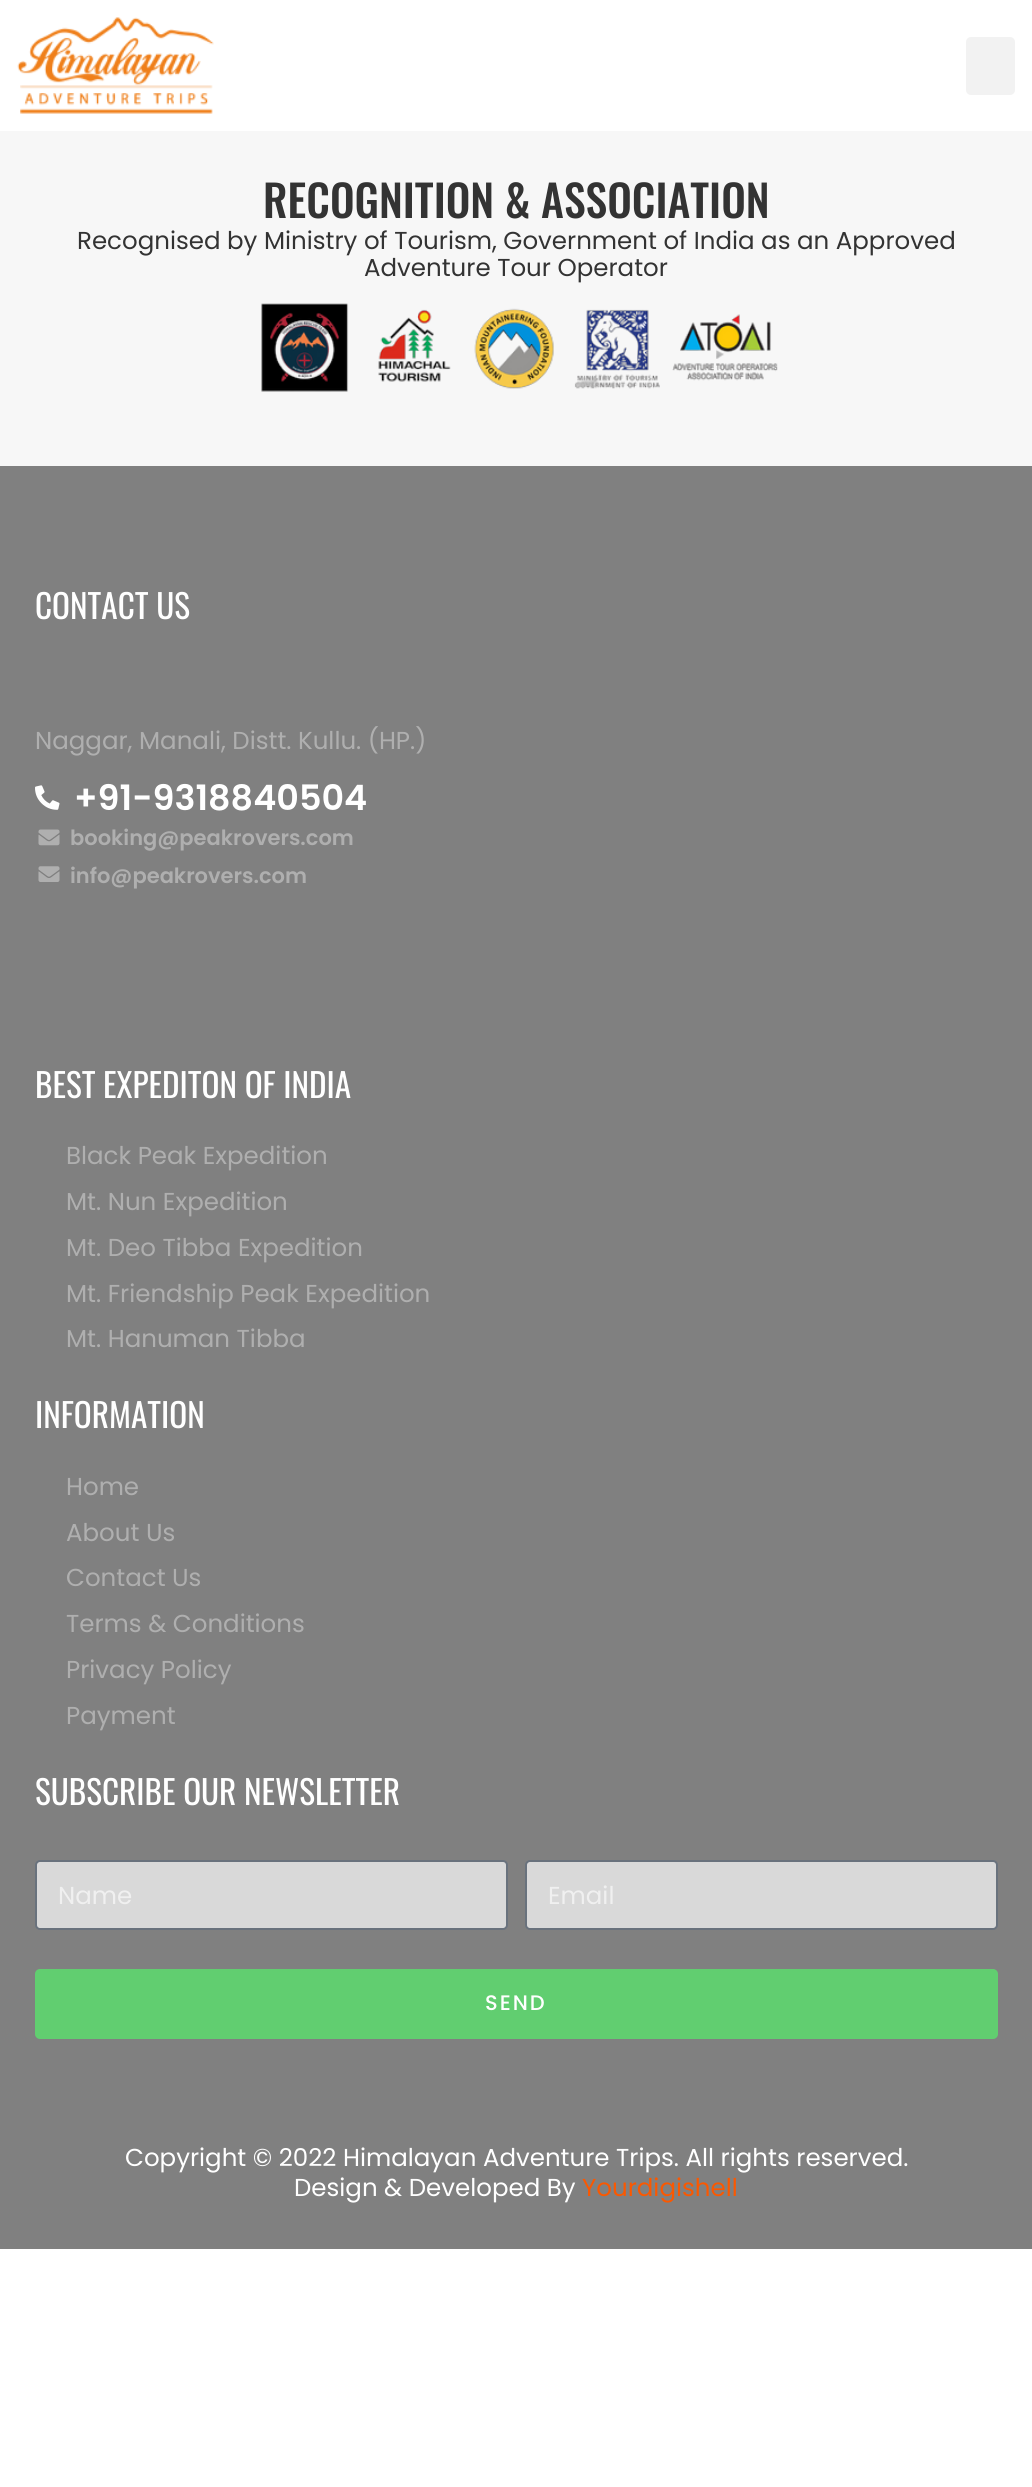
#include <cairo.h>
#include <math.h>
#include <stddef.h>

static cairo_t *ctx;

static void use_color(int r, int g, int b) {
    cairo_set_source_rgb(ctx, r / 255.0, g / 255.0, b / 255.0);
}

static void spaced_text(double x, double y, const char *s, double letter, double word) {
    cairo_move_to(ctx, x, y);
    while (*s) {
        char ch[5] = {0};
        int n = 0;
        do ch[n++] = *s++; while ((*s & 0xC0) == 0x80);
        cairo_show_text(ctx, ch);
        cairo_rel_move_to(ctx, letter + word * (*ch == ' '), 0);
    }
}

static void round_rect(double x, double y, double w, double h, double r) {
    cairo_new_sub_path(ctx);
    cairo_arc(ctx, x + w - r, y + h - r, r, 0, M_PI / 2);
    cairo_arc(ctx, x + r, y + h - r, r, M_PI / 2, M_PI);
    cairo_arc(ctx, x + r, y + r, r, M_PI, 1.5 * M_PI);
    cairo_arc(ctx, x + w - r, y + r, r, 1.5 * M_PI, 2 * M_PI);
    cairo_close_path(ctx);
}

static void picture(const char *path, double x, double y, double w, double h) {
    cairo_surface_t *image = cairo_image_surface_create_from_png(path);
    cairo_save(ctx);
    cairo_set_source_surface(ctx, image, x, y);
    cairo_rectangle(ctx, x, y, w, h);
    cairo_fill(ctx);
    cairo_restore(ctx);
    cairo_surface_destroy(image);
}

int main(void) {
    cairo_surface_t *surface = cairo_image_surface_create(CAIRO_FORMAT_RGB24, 1032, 2487);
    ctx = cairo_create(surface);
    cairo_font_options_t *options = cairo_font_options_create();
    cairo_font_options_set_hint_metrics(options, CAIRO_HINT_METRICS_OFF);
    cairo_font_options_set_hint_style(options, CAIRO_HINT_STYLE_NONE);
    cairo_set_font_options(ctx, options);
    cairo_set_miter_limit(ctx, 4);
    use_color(255, 255, 255);
    cairo_paint(ctx);
    picture("img1.png", 17, 17, 197, 97);
    use_color(242, 242, 242);
    round_rect(966, 37, 49, 58, 5);
    cairo_fill(ctx);
    use_color(247, 247, 247);
    cairo_rectangle(ctx, 0, 131, 1032, 335);
    cairo_fill(ctx);
    cairo_select_font_face(ctx, "Oswald Medium", CAIRO_FONT_SLANT_NORMAL, CAIRO_FONT_WEIGHT_NORMAL);
    cairo_set_font_size(ctx, 43.75);
    use_color(51, 51, 51);
    cairo_move_to(ctx, 263, 218);
    cairo_show_text(ctx, "RECOGNITION & ASSOCIATION");
    cairo_select_font_face(ctx, "Poppins", CAIRO_FONT_SLANT_NORMAL, CAIRO_FONT_WEIGHT_NORMAL);
    cairo_set_font_size(ctx, 24.5);
    cairo_move_to(ctx, 77, 249);
    cairo_show_text(ctx, "Recognised by Ministry of Tourism, Government of India as an Approved");
    cairo_move_to(ctx, 364, 276);
    cairo_show_text(ctx, "Adventure Tour Operator");
    picture("img2.png", 261, 303, 517, 89);
    use_color(128, 128, 128);
    cairo_rectangle(ctx, 0, 466, 1032, 1783);
    cairo_fill(ctx);
    cairo_select_font_face(ctx, "Oswald", CAIRO_FONT_SLANT_NORMAL, CAIRO_FONT_WEIGHT_NORMAL);
    cairo_set_font_size(ctx, 33.25);
    use_color(255, 255, 255);
    cairo_move_to(ctx, 35, 619);
    cairo_show_text(ctx, "CONTACT US");
    cairo_select_font_face(ctx, "Poppins", CAIRO_FONT_SLANT_NORMAL, CAIRO_FONT_WEIGHT_NORMAL);
    cairo_set_font_size(ctx, 24.5);
    use_color(175, 175, 175);
    cairo_move_to(ctx, 35, 749);
    cairo_show_text(ctx, "Naggar, Manali, Distt. Kullu. (HP.)");
    picture("img3.png", 35, 785, 25, 25);
    cairo_select_font_face(ctx, "Poppins SemiBold", CAIRO_FONT_SLANT_NORMAL, CAIRO_FONT_WEIGHT_NORMAL);
    cairo_set_font_size(ctx, 35);
    use_color(255, 255, 255);
    cairo_move_to(ctx, 74, 810);
    cairo_show_text(ctx, "+91-9318840504");
    picture("img4.png", 38, 829, 22, 17);
    cairo_set_font_size(ctx, 21);
    use_color(175, 175, 175);
    cairo_move_to(ctx, 70, 845);
    cairo_show_text(ctx, "booking@peakrovers.com");
    picture("img5.png", 38, 866, 22, 16);
    cairo_move_to(ctx, 70, 883);
    cairo_show_text(ctx, "info@peakrovers.com");
    cairo_select_font_face(ctx, "Oswald", CAIRO_FONT_SLANT_NORMAL, CAIRO_FONT_WEIGHT_NORMAL);
    cairo_set_font_size(ctx, 33.25);
    use_color(255, 255, 255);
    cairo_move_to(ctx, 35, 1098);
    cairo_show_text(ctx, "BEST EXPEDITON OF INDIA");
    cairo_select_font_face(ctx, "Poppins", CAIRO_FONT_SLANT_NORMAL, CAIRO_FONT_WEIGHT_NORMAL);
    cairo_set_font_size(ctx, 24.5);
    use_color(175, 175, 175);
    cairo_move_to(ctx, 66, 1164);
    cairo_show_text(ctx, "Black Peak Expedition");
    cairo_move_to(ctx, 66, 1210);
    cairo_show_text(ctx, "Mt. Nun Expedition");
    cairo_move_to(ctx, 66, 1256);
    cairo_show_text(ctx, "Mt. Deo Tibba Expedition");
    cairo_move_to(ctx, 66, 1302);
    cairo_show_text(ctx, "Mt. Friendship Peak Expedition");
    cairo_move_to(ctx, 66, 1347);
    cairo_show_text(ctx, "Mt. Hanuman Tibba");
    cairo_select_font_face(ctx, "Oswald", CAIRO_FONT_SLANT_NORMAL, CAIRO_FONT_WEIGHT_NORMAL);
    cairo_set_font_size(ctx, 33.25);
    use_color(255, 255, 255);
    cairo_move_to(ctx, 35, 1428);
    cairo_show_text(ctx, "INFORMATION");
    cairo_select_font_face(ctx, "Poppins", CAIRO_FONT_SLANT_NORMAL, CAIRO_FONT_WEIGHT_NORMAL);
    cairo_set_font_size(ctx, 24.5);
    use_color(175, 175, 175);
    cairo_move_to(ctx, 66, 1495);
    cairo_show_text(ctx, "Home");
    cairo_move_to(ctx, 66, 1541);
    cairo_show_text(ctx, "About Us");
    cairo_move_to(ctx, 66, 1586);
    cairo_show_text(ctx, "Contact Us");
    cairo_move_to(ctx, 66, 1632);
    cairo_show_text(ctx, "Terms & Conditions");
    cairo_move_to(ctx, 66, 1678);
    cairo_show_text(ctx, "Privacy Policy");
    cairo_move_to(ctx, 66, 1724);
    cairo_show_text(ctx, "Payment");
    cairo_select_font_face(ctx, "Oswald", CAIRO_FONT_SLANT_NORMAL, CAIRO_FONT_WEIGHT_NORMAL);
    cairo_set_font_size(ctx, 33.25);
    use_color(255, 255, 255);
    cairo_move_to(ctx, 35, 1805);
    cairo_show_text(ctx, "SUBSCRIBE OUR NEWSLETTER");
    use_color(217, 217, 217);
    round_rect(36, 1861, 471, 68, 4);
    cairo_fill_preserve(ctx);
    use_color(105, 114, 125);
    cairo_stroke(ctx);
    cairo_select_font_face(ctx, "Poppins", CAIRO_FONT_SLANT_NORMAL, CAIRO_FONT_WEIGHT_NORMAL);
    cairo_set_font_size(ctx, 24.5);
    use_color(240, 240, 240);
    cairo_move_to(ctx, 58, 1904);
    cairo_show_text(ctx, "Name");
    use_color(217, 217, 217);
    round_rect(526, 1861, 471, 68, 4);
    cairo_fill_preserve(ctx);
    use_color(105, 114, 125);
    cairo_stroke(ctx);
    use_color(240, 240, 240);
    cairo_move_to(ctx, 548, 1904);
    cairo_show_text(ctx, "Email");
    use_color(97, 206, 112);
    round_rect(35, 1969, 963, 70, 5);
    cairo_fill(ctx);
    cairo_select_font_face(ctx, "Poppins Medium", CAIRO_FONT_SLANT_NORMAL, CAIRO_FONT_WEIGHT_NORMAL);
    cairo_set_font_size(ctx, 21);
    use_color(255, 255, 255);
    spaced_text(485, 2010, "SEND", 2, 0);
    cairo_select_font_face(ctx, "Poppins", CAIRO_FONT_SLANT_NORMAL, CAIRO_FONT_WEIGHT_NORMAL);
    cairo_set_font_size(ctx, 24.5);
    cairo_move_to(ctx, 125, 2166);
    cairo_show_text(ctx, "Copyright © 2022 Himalayan Adventure Trips. All rights reserved.");
    cairo_move_to(ctx, 294, 2196);
    cairo_show_text(ctx, "Design & Developed By");
    use_color(250, 88, 1);
    cairo_move_to(ctx, 582, 2196);
    cairo_show_text(ctx, "Yourdigishell");
    cairo_surface_write_to_png(surface, "result.png");
    cairo_font_options_destroy(options);
    cairo_destroy(ctx);
    cairo_surface_destroy(surface);
    return 0;
}
